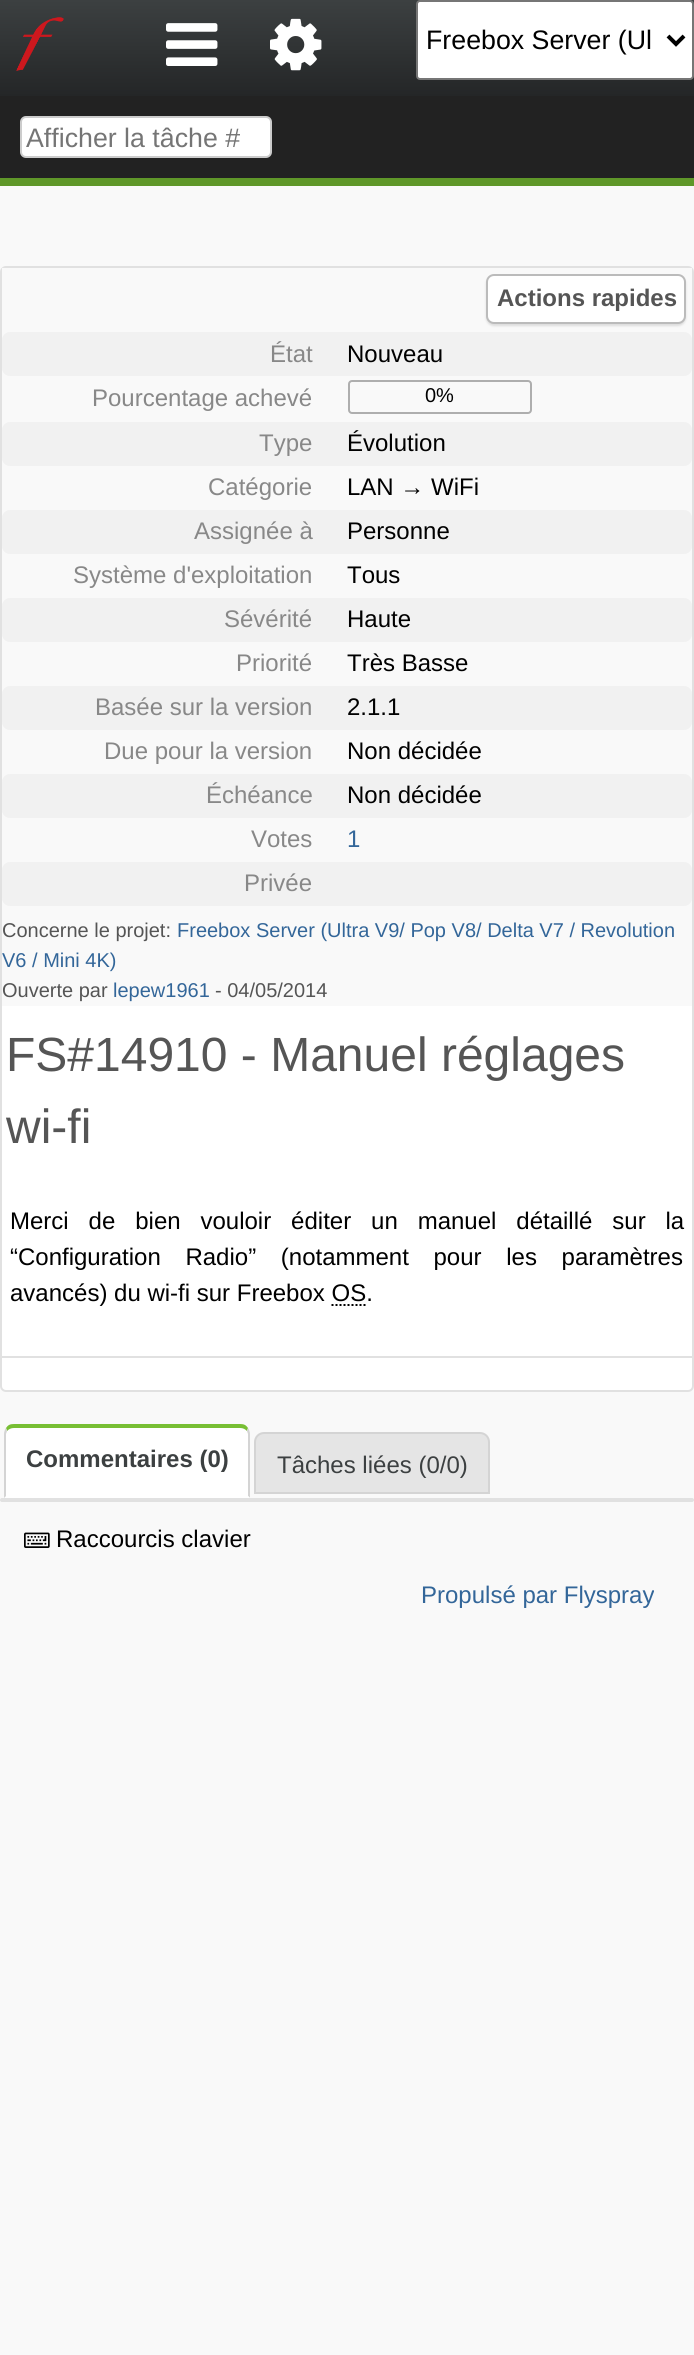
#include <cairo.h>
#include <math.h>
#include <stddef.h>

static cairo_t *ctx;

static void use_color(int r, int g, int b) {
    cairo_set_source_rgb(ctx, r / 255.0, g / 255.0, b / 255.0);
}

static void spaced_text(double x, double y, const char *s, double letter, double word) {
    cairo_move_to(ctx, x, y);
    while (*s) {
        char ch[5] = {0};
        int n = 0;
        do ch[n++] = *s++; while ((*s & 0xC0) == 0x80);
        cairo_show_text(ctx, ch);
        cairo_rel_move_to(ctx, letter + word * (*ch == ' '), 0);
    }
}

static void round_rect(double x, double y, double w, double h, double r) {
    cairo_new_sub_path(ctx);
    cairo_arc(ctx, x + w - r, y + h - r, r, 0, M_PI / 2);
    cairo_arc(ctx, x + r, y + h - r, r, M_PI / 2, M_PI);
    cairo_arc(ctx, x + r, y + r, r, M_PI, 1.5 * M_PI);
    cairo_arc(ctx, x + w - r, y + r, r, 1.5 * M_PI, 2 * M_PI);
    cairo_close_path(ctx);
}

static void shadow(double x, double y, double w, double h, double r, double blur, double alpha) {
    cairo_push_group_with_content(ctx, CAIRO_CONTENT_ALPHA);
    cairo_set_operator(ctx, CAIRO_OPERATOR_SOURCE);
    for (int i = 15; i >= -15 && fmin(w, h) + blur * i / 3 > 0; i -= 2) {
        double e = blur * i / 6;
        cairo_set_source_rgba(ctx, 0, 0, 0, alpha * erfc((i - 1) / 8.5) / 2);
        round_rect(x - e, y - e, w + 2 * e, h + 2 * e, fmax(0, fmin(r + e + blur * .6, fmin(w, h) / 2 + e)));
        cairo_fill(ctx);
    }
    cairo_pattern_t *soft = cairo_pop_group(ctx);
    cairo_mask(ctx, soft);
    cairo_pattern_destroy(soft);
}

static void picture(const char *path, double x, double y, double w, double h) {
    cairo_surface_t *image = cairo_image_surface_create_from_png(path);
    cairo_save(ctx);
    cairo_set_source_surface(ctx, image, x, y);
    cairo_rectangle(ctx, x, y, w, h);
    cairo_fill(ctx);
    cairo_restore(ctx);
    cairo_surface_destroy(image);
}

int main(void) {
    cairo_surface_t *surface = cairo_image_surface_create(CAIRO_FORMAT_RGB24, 694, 2355);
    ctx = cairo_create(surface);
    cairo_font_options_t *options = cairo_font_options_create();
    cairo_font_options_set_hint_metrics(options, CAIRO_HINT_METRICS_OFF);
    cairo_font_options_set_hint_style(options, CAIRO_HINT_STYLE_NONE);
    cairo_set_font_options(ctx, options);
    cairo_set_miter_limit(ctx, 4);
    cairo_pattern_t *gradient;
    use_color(249, 249, 249);
    cairo_paint(ctx);
    gradient = cairo_pattern_create_linear(347, 0, 347, 96);
    cairo_pattern_add_color_stop_rgba(gradient, 0, 0.235, 0.251, 0.255, 1);
    cairo_pattern_add_color_stop_rgba(gradient, 1, 0.141, 0.149, 0.153, 1);
    cairo_set_source(ctx, gradient);
    cairo_pattern_destroy(gradient);
    cairo_rectangle(ctx, 0, 0, 694, 96);
    cairo_fill(ctx);
    picture("img1.png", 16, 17, 48, 54);
    picture("img2.png", 270, 18, 52, 53);
    use_color(34, 34, 34);
    cairo_rectangle(ctx, 0, 96, 694, 82);
    cairo_fill(ctx);
    use_color(95, 151, 41);
    cairo_rectangle(ctx, 0, 178, 694, 8);
    cairo_fill(ctx);
    picture("img3.png", 166, 23, 52, 43);
    use_color(255, 255, 255);
    round_rect(417, 1, 276, 78, 3);
    cairo_fill_preserve(ctx);
    use_color(118, 118, 118);
    cairo_stroke(ctx);
    cairo_new_path(ctx);
    cairo_move_to(ctx, 668, 36);
    cairo_line_to(ctx, 676, 44);
    cairo_line_to(ctx, 684, 36);
    use_color(0, 0, 0);
    cairo_set_line_width(ctx, 4);
    cairo_stroke(ctx);
    cairo_select_font_face(ctx, "Liberation Sans", CAIRO_FONT_SLANT_NORMAL, CAIRO_FONT_WEIGHT_NORMAL);
    cairo_set_font_size(ctx, 26.75);
    cairo_move_to(ctx, 426, 49);
    cairo_show_text(ctx, "Freebox Server (Ul");
    use_color(255, 255, 255);
    round_rect(21, 117, 250, 40, 5);
    cairo_fill_preserve(ctx);
    use_color(204, 204, 204);
    cairo_set_line_width(ctx, 2);
    cairo_stroke(ctx);
    use_color(117, 117, 117);
    cairo_move_to(ctx, 26, 147);
    cairo_show_text(ctx, "Afficher la tâche #");
    use_color(255, 255, 255);
    round_rect(1, 267, 692, 1124, 5);
    cairo_fill_preserve(ctx);
    use_color(225, 225, 225);
    cairo_stroke(ctx);
    use_color(249, 249, 249);
    cairo_rectangle(ctx, 2, 268, 690, 738);
    cairo_fill(ctx);
    use_color(221, 221, 221);
    shadow(486, 276, 200, 50, 8, 1, 1);
    use_color(255, 255, 255);
    round_rect(487, 275, 198, 48, 7);
    cairo_fill_preserve(ctx);
    use_color(187, 187, 187);
    cairo_stroke(ctx);
    cairo_select_font_face(ctx, "Liberation Sans", CAIRO_FONT_SLANT_NORMAL, CAIRO_FONT_WEIGHT_BOLD);
    cairo_set_font_size(ctx, 24);
    use_color(85, 85, 85);
    cairo_move_to(ctx, 497, 306);
    cairo_show_text(ctx, "Actions rapides");
    use_color(241, 241, 241);
    round_rect(2, 332, 690, 44, 8);
    cairo_fill(ctx);
    cairo_select_font_face(ctx, "Liberation Sans", CAIRO_FONT_SLANT_NORMAL, CAIRO_FONT_WEIGHT_NORMAL);
    use_color(136, 136, 136);
    cairo_move_to(ctx, 270, 362);
    cairo_show_text(ctx, "État");
    use_color(0, 0, 0);
    cairo_move_to(ctx, 347, 362);
    cairo_show_text(ctx, "Nouveau");
    use_color(136, 136, 136);
    cairo_move_to(ctx, 92, 406);
    cairo_show_text(ctx, "Pourcentage achevé");
    round_rect(349, 381, 182, 32, 3);
    use_color(174, 174, 174);
    cairo_stroke(ctx);
    cairo_set_font_size(ctx, 20);
    use_color(0, 0, 0);
    cairo_move_to(ctx, 425, 402);
    cairo_show_text(ctx, "0%");
    use_color(241, 241, 241);
    round_rect(2, 422, 690, 44, 8);
    cairo_fill(ctx);
    cairo_set_font_size(ctx, 24);
    use_color(136, 136, 136);
    cairo_move_to(ctx, 259, 451);
    cairo_show_text(ctx, "Type");
    use_color(0, 0, 0);
    cairo_move_to(ctx, 347, 451);
    cairo_show_text(ctx, "Évolution");
    use_color(136, 136, 136);
    cairo_move_to(ctx, 208, 495);
    cairo_show_text(ctx, "Catégorie");
    use_color(0, 0, 0);
    cairo_move_to(ctx, 347, 495);
    cairo_show_text(ctx, "LAN → WiFi");
    use_color(241, 241, 241);
    round_rect(2, 510, 690, 44, 8);
    cairo_fill(ctx);
    use_color(136, 136, 136);
    cairo_move_to(ctx, 194, 539);
    cairo_show_text(ctx, "Assignée à");
    use_color(0, 0, 0);
    cairo_move_to(ctx, 347, 539);
    cairo_show_text(ctx, "Personne");
    use_color(136, 136, 136);
    cairo_move_to(ctx, 73, 583);
    cairo_show_text(ctx, "Système d'exploitation");
    use_color(0, 0, 0);
    cairo_move_to(ctx, 347, 583);
    cairo_show_text(ctx, "Tous");
    use_color(241, 241, 241);
    round_rect(2, 598, 690, 44, 8);
    cairo_fill(ctx);
    use_color(136, 136, 136);
    cairo_move_to(ctx, 224, 627);
    cairo_show_text(ctx, "Sévérité");
    use_color(0, 0, 0);
    cairo_move_to(ctx, 347, 627);
    cairo_show_text(ctx, "Haute");
    use_color(136, 136, 136);
    cairo_move_to(ctx, 236, 671);
    cairo_show_text(ctx, "Priorité");
    use_color(0, 0, 0);
    cairo_move_to(ctx, 347, 671);
    cairo_show_text(ctx, "Très Basse");
    use_color(241, 241, 241);
    round_rect(2, 686, 690, 44, 8);
    cairo_fill(ctx);
    use_color(136, 136, 136);
    cairo_move_to(ctx, 95, 715);
    cairo_show_text(ctx, "Basée sur la version");
    use_color(0, 0, 0);
    cairo_move_to(ctx, 347, 715);
    cairo_show_text(ctx, "2.1.1");
    use_color(136, 136, 136);
    cairo_move_to(ctx, 104, 759);
    cairo_show_text(ctx, "Due pour la version");
    use_color(0, 0, 0);
    cairo_move_to(ctx, 347, 759);
    cairo_show_text(ctx, "Non décidée");
    use_color(241, 241, 241);
    round_rect(2, 774, 690, 44, 8);
    cairo_fill(ctx);
    use_color(136, 136, 136);
    cairo_move_to(ctx, 206, 803);
    cairo_show_text(ctx, "Échéance");
    use_color(0, 0, 0);
    cairo_move_to(ctx, 347, 803);
    cairo_show_text(ctx, "Non décidée");
    use_color(136, 136, 136);
    cairo_move_to(ctx, 251, 847);
    cairo_show_text(ctx, "Votes");
    use_color(51, 102, 153);
    cairo_move_to(ctx, 347, 847);
    cairo_show_text(ctx, "1");
    use_color(241, 241, 241);
    round_rect(2, 862, 690, 44, 8);
    cairo_fill(ctx);
    use_color(136, 136, 136);
    cairo_move_to(ctx, 244, 891);
    cairo_show_text(ctx, "Privée");
    cairo_set_font_size(ctx, 20);
    use_color(85, 85, 85);
    cairo_move_to(ctx, 2, 937);
    cairo_show_text(ctx, "Concerne le projet:");
    use_color(51, 102, 153);
    cairo_move_to(ctx, 177, 937);
    cairo_show_text(ctx, "Freebox Server (Ultra V9/ Pop V8/ Delta V7 / Revolution");
    cairo_move_to(ctx, 2, 967);
    cairo_show_text(ctx, "V6 / Mini 4K)");
    use_color(85, 85, 85);
    cairo_move_to(ctx, 2, 997);
    cairo_show_text(ctx, "Ouverte par");
    use_color(51, 102, 153);
    cairo_move_to(ctx, 113, 997);
    cairo_show_text(ctx, "lepew1961");
    use_color(85, 85, 85);
    cairo_move_to(ctx, 215, 997);
    cairo_show_text(ctx, "- 04/05/2014");
    cairo_set_font_size(ctx, 48);
    cairo_move_to(ctx, 6, 1071);
    cairo_show_text(ctx, "FS#14910 - Manuel réglages");
    cairo_move_to(ctx, 6, 1143);
    cairo_show_text(ctx, "wi-fi");
    cairo_set_font_size(ctx, 24);
    use_color(0, 0, 0);
    spaced_text(10, 1229, "Merci de bien vouloir éditer un manuel détaillé sur la", 0, 13.25);
    spaced_text(10, 1265, "“Configuration Radio” (notamment pour les paramètres", 0, 18);
    cairo_move_to(ctx, 10, 1301);
    cairo_show_text(ctx, "avancés) du wi-fi sur Freebox OS.");
    cairo_new_path(ctx);
    cairo_move_to(ctx, 331.5, 1305);
    cairo_line_to(ctx, 366, 1305);
    cairo_set_dash(ctx, (double[]){2, 2}, 2, 0);
    cairo_stroke(ctx);
    use_color(225, 225, 225);
    cairo_rectangle(ctx, 2, 1356, 690, 2);
    cairo_fill(ctx);
    use_color(255, 255, 255);
    cairo_new_path(ctx);
    cairo_move_to(ctx, 14, 1428);
    cairo_line_to(ctx, 240, 1428);
    cairo_curve_to(ctx, 244, 1428, 248, 1431, 248, 1434);
    cairo_line_to(ctx, 248, 1496);
    cairo_line_to(ctx, 6, 1496);
    cairo_line_to(ctx, 6, 1434);
    cairo_curve_to(ctx, 6, 1431, 10, 1428, 14, 1428);
    cairo_close_path(ctx);
    cairo_fill(ctx);
    use_color(120, 191, 52);
    cairo_new_path(ctx);
    cairo_move_to(ctx, 14, 1424);
    cairo_curve_to(ctx, 10, 1424, 8, 1425, 6, 1428);
    cairo_line_to(ctx, 7, 1431);
    cairo_curve_to(ctx, 9, 1429, 11, 1428, 14, 1428);
    cairo_line_to(ctx, 240, 1428);
    cairo_curve_to(ctx, 243, 1428, 245, 1429, 247, 1431);
    cairo_line_to(ctx, 248, 1428);
    cairo_curve_to(ctx, 246, 1425, 244, 1424, 240, 1424);
    cairo_close_path(ctx);
    cairo_fill(ctx);
    use_color(212, 212, 212);
    cairo_new_path(ctx);
    cairo_move_to(ctx, 250, 1498);
    cairo_line_to(ctx, 250, 1434);
    cairo_curve_to(ctx, 250, 1432, 249, 1429, 248, 1428);
    cairo_line_to(ctx, 247, 1431);
    cairo_line_to(ctx, 248, 1434);
    cairo_line_to(ctx, 248, 1496);
    cairo_close_path(ctx);
    cairo_fill(ctx);
    use_color(255, 255, 255);
    cairo_new_path(ctx);
    cairo_move_to(ctx, 250, 1498);
    cairo_line_to(ctx, 248, 1496);
    cairo_line_to(ctx, 6, 1496);
    cairo_line_to(ctx, 4, 1498);
    cairo_close_path(ctx);
    cairo_fill(ctx);
    use_color(212, 212, 212);
    cairo_new_path(ctx);
    cairo_move_to(ctx, 4, 1498);
    cairo_line_to(ctx, 6, 1496);
    cairo_line_to(ctx, 6, 1434);
    cairo_line_to(ctx, 7, 1431);
    cairo_line_to(ctx, 6, 1428);
    cairo_curve_to(ctx, 5, 1429, 4, 1432, 4, 1434);
    cairo_close_path(ctx);
    cairo_fill(ctx);
    cairo_select_font_face(ctx, "Liberation Sans", CAIRO_FONT_SLANT_NORMAL, CAIRO_FONT_WEIGHT_BOLD);
    use_color(60, 64, 65);
    cairo_move_to(ctx, 26, 1467);
    cairo_show_text(ctx, "Commentaires (0)");
    use_color(229, 229, 229);
    cairo_new_path(ctx);
    cairo_move_to(ctx, 264, 1433);
    cairo_line_to(ctx, 480, 1433);
    cairo_curve_to(ctx, 485, 1433, 489, 1437, 489, 1442);
    cairo_line_to(ctx, 489, 1493);
    cairo_line_to(ctx, 255, 1493);
    cairo_line_to(ctx, 255, 1442);
    cairo_curve_to(ctx, 255, 1437, 259, 1433, 264, 1433);
    cairo_close_path(ctx);
    cairo_fill_preserve(ctx);
    use_color(212, 212, 212);
    cairo_set_dash(ctx, NULL, 0, 0);
    cairo_stroke(ctx);
    cairo_select_font_face(ctx, "Liberation Sans", CAIRO_FONT_SLANT_NORMAL, CAIRO_FONT_WEIGHT_NORMAL);
    use_color(60, 64, 65);
    cairo_move_to(ctx, 277, 1473);
    cairo_show_text(ctx, "Tâches liées (0/0)");
    use_color(225, 225, 225);
    round_rect(0, 1498, 694, 4, 2);
    cairo_fill(ctx);
    picture("img4.png", 24, 1532, 26, 16);
    use_color(0, 0, 0);
    cairo_move_to(ctx, 56, 1547);
    cairo_show_text(ctx, "Raccourcis clavier");
    use_color(51, 102, 153);
    cairo_move_to(ctx, 421, 1603);
    cairo_show_text(ctx, "Propulsé par Flyspray");
    cairo_surface_write_to_png(surface, "result.png");
    cairo_font_options_destroy(options);
    cairo_destroy(ctx);
    cairo_surface_destroy(surface);
    return 0;
}
